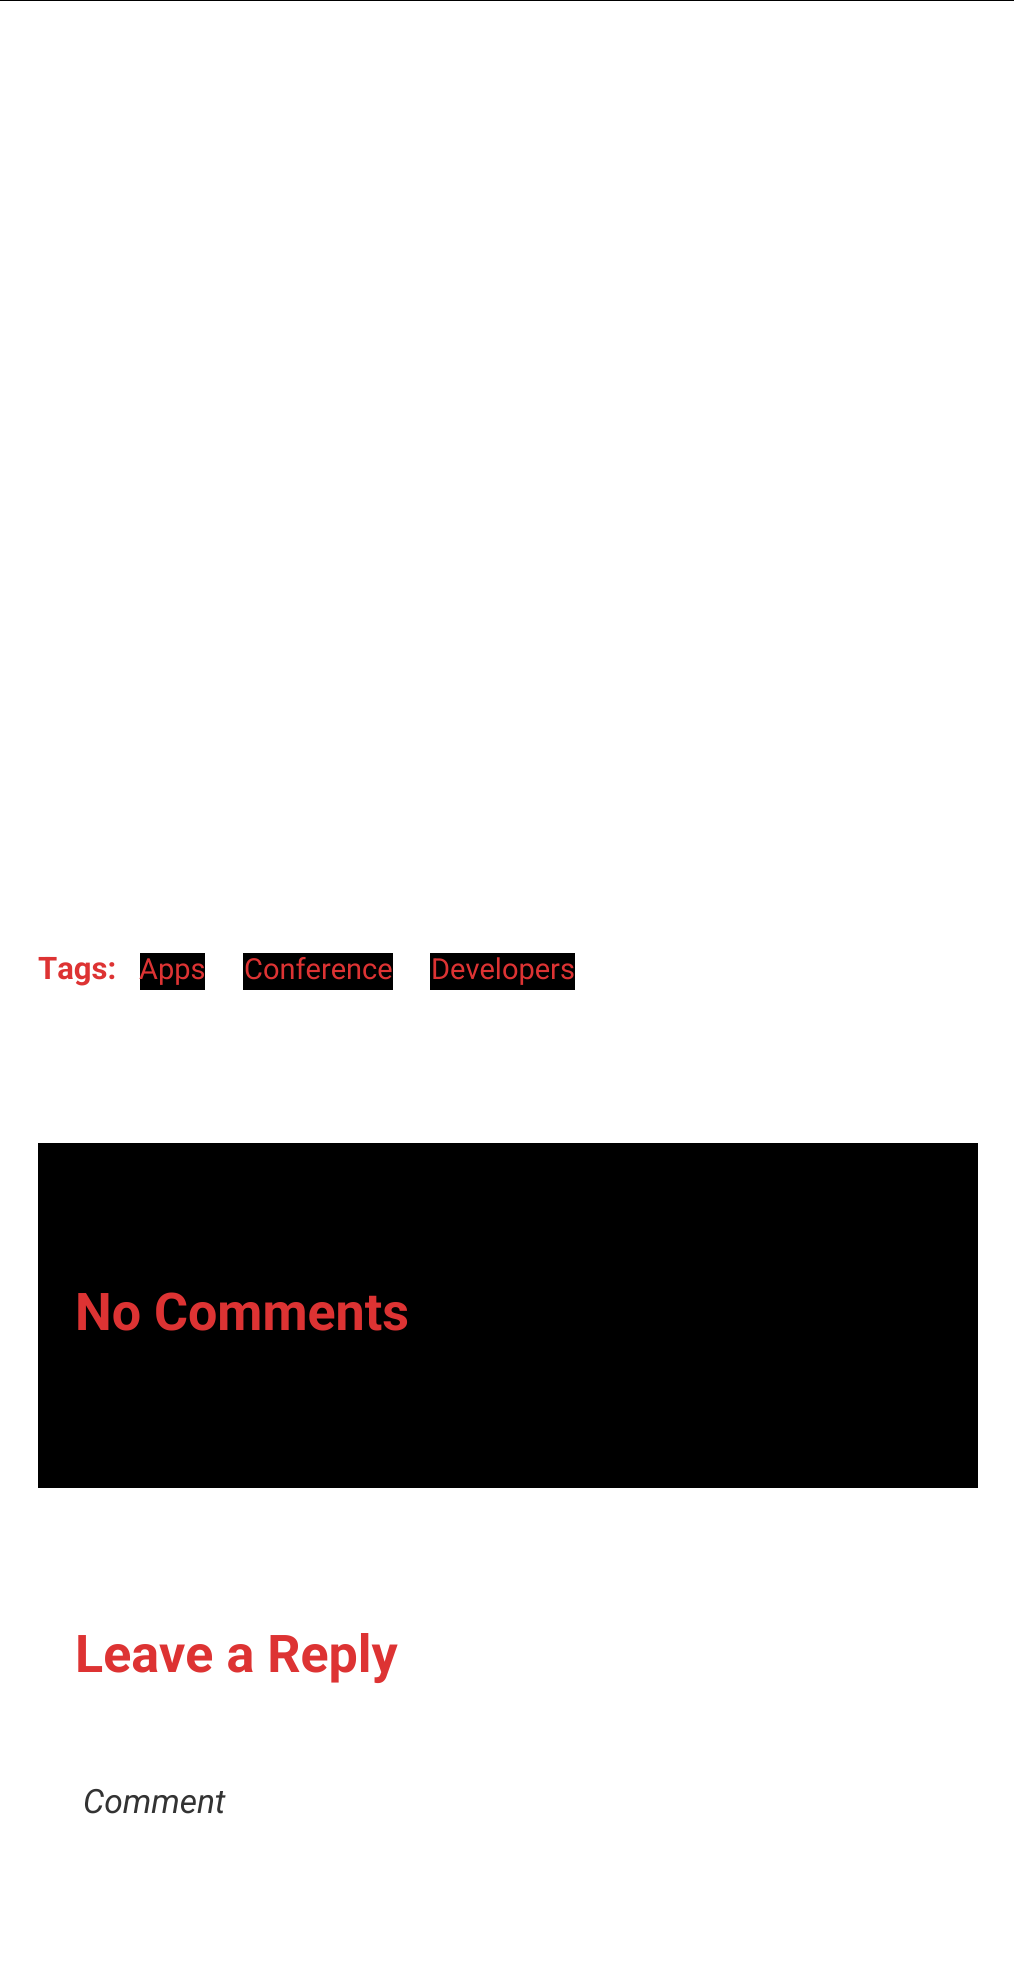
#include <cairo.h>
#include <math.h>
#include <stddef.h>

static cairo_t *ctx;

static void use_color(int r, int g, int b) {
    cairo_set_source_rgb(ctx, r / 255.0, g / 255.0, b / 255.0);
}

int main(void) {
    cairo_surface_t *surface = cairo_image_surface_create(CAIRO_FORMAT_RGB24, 1014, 1974);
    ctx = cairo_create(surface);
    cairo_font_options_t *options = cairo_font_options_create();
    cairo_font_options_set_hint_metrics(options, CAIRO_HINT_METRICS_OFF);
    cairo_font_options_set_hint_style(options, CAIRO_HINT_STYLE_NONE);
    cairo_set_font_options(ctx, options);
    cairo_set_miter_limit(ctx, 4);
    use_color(255, 255, 255);
    cairo_paint(ctx);
    use_color(0, 0, 0);
    cairo_rectangle(ctx, 0, 0, 1014, 1);
    cairo_fill(ctx);
    cairo_select_font_face(ctx, "Roboto", CAIRO_FONT_SLANT_NORMAL, CAIRO_FONT_WEIGHT_BOLD);
    cairo_set_font_size(ctx, 31);
    use_color(221, 51, 51);
    cairo_move_to(ctx, 38, 979);
    cairo_show_text(ctx, "Tags:");
    use_color(0, 0, 0);
    cairo_rectangle(ctx, 140, 953, 65, 37);
    cairo_fill(ctx);
    cairo_select_font_face(ctx, "Roboto", CAIRO_FONT_SLANT_NORMAL, CAIRO_FONT_WEIGHT_NORMAL);
    cairo_set_font_size(ctx, 29);
    use_color(221, 51, 51);
    cairo_move_to(ctx, 139, 979);
    cairo_show_text(ctx, "Apps");
    use_color(0, 0, 0);
    cairo_rectangle(ctx, 243, 953, 150, 37);
    cairo_fill(ctx);
    use_color(221, 51, 51);
    cairo_move_to(ctx, 244, 979);
    cairo_show_text(ctx, "Conference");
    use_color(0, 0, 0);
    cairo_rectangle(ctx, 430, 953, 145, 37);
    cairo_fill(ctx);
    use_color(221, 51, 51);
    cairo_move_to(ctx, 431, 979);
    cairo_show_text(ctx, "Developers");
    use_color(0, 0, 0);
    cairo_rectangle(ctx, 38, 1143, 940, 345);
    cairo_fill(ctx);
    cairo_select_font_face(ctx, "Roboto", CAIRO_FONT_SLANT_NORMAL, CAIRO_FONT_WEIGHT_BOLD);
    cairo_set_font_size(ctx, 52);
    use_color(221, 51, 51);
    cairo_move_to(ctx, 75, 1330);
    cairo_show_text(ctx, "No Comments");
    cairo_move_to(ctx, 75, 1672);
    cairo_show_text(ctx, "Leave a Reply");
    cairo_select_font_face(ctx, "Roboto", CAIRO_FONT_SLANT_ITALIC, CAIRO_FONT_WEIGHT_NORMAL);
    cairo_set_font_size(ctx, 33.5);
    use_color(51, 51, 51);
    cairo_move_to(ctx, 83, 1813);
    cairo_show_text(ctx, "Comment");
    cairo_surface_write_to_png(surface, "result.png");
    cairo_font_options_destroy(options);
    cairo_destroy(ctx);
    cairo_surface_destroy(surface);
    return 0;
}
